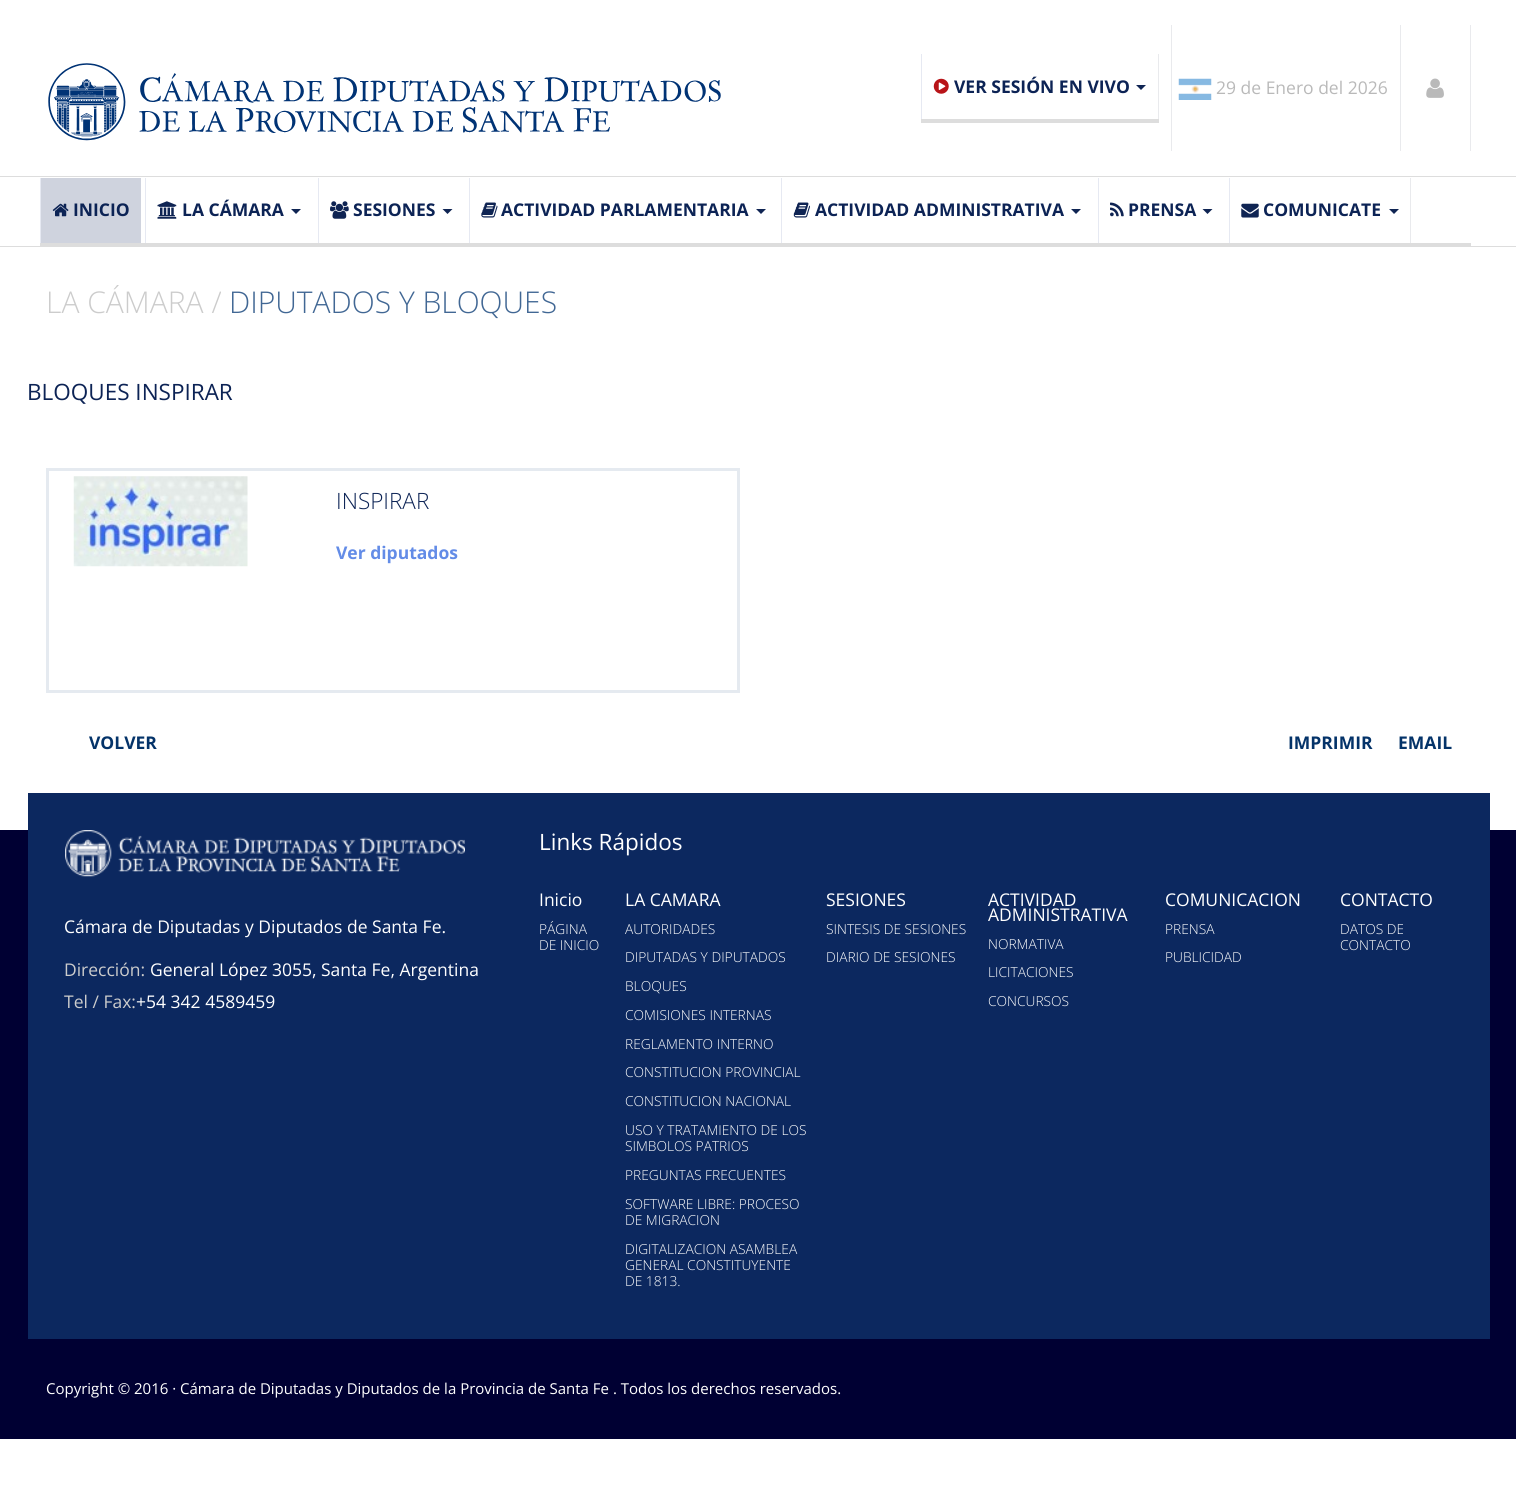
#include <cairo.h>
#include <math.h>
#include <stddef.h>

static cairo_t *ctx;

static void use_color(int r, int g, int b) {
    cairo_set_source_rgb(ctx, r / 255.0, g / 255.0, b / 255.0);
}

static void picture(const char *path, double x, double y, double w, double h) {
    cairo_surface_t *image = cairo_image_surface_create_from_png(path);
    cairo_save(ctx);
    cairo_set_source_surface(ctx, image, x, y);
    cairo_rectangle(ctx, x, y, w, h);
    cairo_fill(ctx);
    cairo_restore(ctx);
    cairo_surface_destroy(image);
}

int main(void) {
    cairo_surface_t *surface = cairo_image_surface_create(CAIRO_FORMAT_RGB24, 1516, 1493);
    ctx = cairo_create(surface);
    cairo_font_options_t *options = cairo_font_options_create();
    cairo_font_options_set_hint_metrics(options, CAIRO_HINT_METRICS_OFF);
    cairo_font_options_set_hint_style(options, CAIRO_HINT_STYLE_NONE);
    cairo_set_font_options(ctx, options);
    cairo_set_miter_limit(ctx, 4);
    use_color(255, 255, 255);
    cairo_paint(ctx);
    use_color(221, 221, 221);
    cairo_rectangle(ctx, 0, 176, 1516, 1);
    cairo_fill(ctx);
    picture("img1.png", 48, 63, 673, 78);
    use_color(233, 234, 237);
    cairo_rectangle(ctx, 1171, 25, 1, 126);
    cairo_fill(ctx);
    use_color(221, 221, 221);
    cairo_rectangle(ctx, 921, 119, 238, 4);
    cairo_fill(ctx);
    use_color(233, 234, 237);
    cairo_rectangle(ctx, 1158, 54, 1, 65);
    cairo_fill(ctx);
    use_color(230, 233, 242);
    cairo_rectangle(ctx, 921, 54, 1, 65);
    cairo_fill(ctx);
    picture("img2.png", 933, 78, 16, 16);
    cairo_select_font_face(ctx, "Open Sans", CAIRO_FONT_SLANT_NORMAL, CAIRO_FONT_WEIGHT_BOLD);
    cairo_set_font_size(ctx, 17.5);
    use_color(12, 35, 85);
    cairo_move_to(ctx, 954, 93);
    cairo_show_text(ctx, "VER SESIÓN EN VIVO");
    use_color(15, 36, 83);
    cairo_new_path(ctx);
    cairo_move_to(ctx, 1136, 85);
    cairo_line_to(ctx, 1146, 85);
    cairo_line_to(ctx, 1141, 90);
    cairo_close_path(ctx);
    cairo_fill(ctx);
    use_color(233, 234, 237);
    cairo_rectangle(ctx, 1400, 25, 1, 126);
    cairo_fill(ctx);
    picture("img3.png", 1178, 78, 34, 22);
    cairo_select_font_face(ctx, "Open Sans", CAIRO_FONT_SLANT_NORMAL, CAIRO_FONT_WEIGHT_NORMAL);
    use_color(185, 185, 185);
    cairo_move_to(ctx, 1216, 94);
    cairo_show_text(ctx, "29 de Enero del 2026");
    use_color(233, 234, 237);
    cairo_rectangle(ctx, 1470, 25, 1, 126);
    cairo_fill(ctx);
    picture("img4.png", 1426, 78, 18, 20);
    use_color(221, 221, 221);
    cairo_rectangle(ctx, 0, 246, 1516, 1);
    cairo_fill(ctx);
    cairo_rectangle(ctx, 40, 243, 1431, 3);
    cairo_fill(ctx);
    use_color(207, 211, 222);
    cairo_rectangle(ctx, 41, 178, 100, 65);
    cairo_fill(ctx);
    use_color(230, 233, 242);
    cairo_rectangle(ctx, 40, 178, 1, 65);
    cairo_fill(ctx);
    picture("img5.png", 52, 203, 17, 14);
    cairo_select_font_face(ctx, "Open Sans", CAIRO_FONT_SLANT_NORMAL, CAIRO_FONT_WEIGHT_BOLD);
    use_color(12, 35, 85);
    cairo_move_to(ctx, 73, 216);
    cairo_show_text(ctx, "INICIO");
    use_color(230, 233, 242);
    cairo_rectangle(ctx, 145, 178, 1, 65);
    cairo_fill(ctx);
    picture("img6.png", 157, 201, 20, 18);
    use_color(12, 35, 85);
    cairo_move_to(ctx, 182, 216);
    cairo_show_text(ctx, "LA CÁMARA");
    use_color(15, 36, 83);
    cairo_new_path(ctx);
    cairo_move_to(ctx, 291, 209);
    cairo_line_to(ctx, 301, 209);
    cairo_line_to(ctx, 296, 214);
    cairo_close_path(ctx);
    cairo_fill(ctx);
    use_color(230, 233, 242);
    cairo_rectangle(ctx, 318, 178, 1, 65);
    cairo_fill(ctx);
    picture("img7.png", 330, 201, 19, 18);
    use_color(12, 35, 85);
    cairo_move_to(ctx, 353, 216);
    cairo_show_text(ctx, "SESIONES");
    use_color(15, 36, 83);
    cairo_new_path(ctx);
    cairo_move_to(ctx, 442.5, 209);
    cairo_line_to(ctx, 452.5, 209);
    cairo_line_to(ctx, 447.5, 214);
    cairo_close_path(ctx);
    cairo_fill(ctx);
    use_color(230, 233, 242);
    cairo_rectangle(ctx, 469, 178, 1, 65);
    cairo_fill(ctx);
    picture("img8.png", 481, 202, 17, 16);
    use_color(12, 35, 85);
    cairo_move_to(ctx, 501, 216);
    cairo_show_text(ctx, "ACTIVIDAD PARLAMENTARIA");
    use_color(15, 36, 83);
    cairo_new_path(ctx);
    cairo_move_to(ctx, 756, 209);
    cairo_line_to(ctx, 766, 209);
    cairo_line_to(ctx, 761, 214);
    cairo_close_path(ctx);
    cairo_fill(ctx);
    use_color(230, 233, 242);
    cairo_rectangle(ctx, 781, 178, 1, 65);
    cairo_fill(ctx);
    picture("img9.png", 793, 202, 17, 16);
    use_color(12, 35, 85);
    cairo_move_to(ctx, 815, 216);
    cairo_show_text(ctx, "ACTIVIDAD ADMINISTRATIVA");
    use_color(15, 36, 83);
    cairo_new_path(ctx);
    cairo_move_to(ctx, 1071, 209);
    cairo_line_to(ctx, 1081, 209);
    cairo_line_to(ctx, 1076, 214);
    cairo_close_path(ctx);
    cairo_fill(ctx);
    use_color(230, 233, 242);
    cairo_rectangle(ctx, 1098, 178, 1, 65);
    cairo_fill(ctx);
    picture("img10.png", 1110, 202, 14, 15);
    use_color(12, 35, 85);
    cairo_move_to(ctx, 1128, 216);
    cairo_show_text(ctx, "PRENSA");
    use_color(15, 36, 83);
    cairo_new_path(ctx);
    cairo_move_to(ctx, 1202.5, 209);
    cairo_line_to(ctx, 1212.5, 209);
    cairo_line_to(ctx, 1207.5, 214);
    cairo_close_path(ctx);
    cairo_fill(ctx);
    use_color(233, 234, 237);
    cairo_rectangle(ctx, 1410, 178, 1, 65);
    cairo_fill(ctx);
    use_color(230, 233, 242);
    cairo_rectangle(ctx, 1229, 178, 1, 65);
    cairo_fill(ctx);
    picture("img11.png", 1241, 203, 18, 15);
    use_color(12, 35, 85);
    cairo_move_to(ctx, 1263, 216);
    cairo_show_text(ctx, "COMUNICATE");
    use_color(15, 36, 83);
    cairo_new_path(ctx);
    cairo_move_to(ctx, 1389, 209);
    cairo_line_to(ctx, 1399, 209);
    cairo_line_to(ctx, 1394, 214);
    cairo_close_path(ctx);
    cairo_fill(ctx);
    cairo_save(ctx);
    cairo_rectangle(ctx, 46, 285, 1425, 33);
    cairo_clip(ctx);
    cairo_select_font_face(ctx, "Open Sans Light", CAIRO_FONT_SLANT_NORMAL, CAIRO_FONT_WEIGHT_NORMAL);
    cairo_set_font_size(ctx, 30);
    use_color(204, 204, 204);
    cairo_move_to(ctx, 46, 313);
    cairo_show_text(ctx, "LA CÁMARA /");
    cairo_restore(ctx);
    cairo_select_font_face(ctx, "Open Sans Light", CAIRO_FONT_SLANT_NORMAL, CAIRO_FONT_WEIGHT_NORMAL);
    cairo_set_font_size(ctx, 30);
    use_color(65, 103, 148);
    cairo_move_to(ctx, 229, 313);
    cairo_show_text(ctx, "DIPUTADOS Y BLOQUES");
    cairo_select_font_face(ctx, "Open Sans", CAIRO_FONT_SLANT_NORMAL, CAIRO_FONT_WEIGHT_NORMAL);
    cairo_set_font_size(ctx, 22.5);
    use_color(12, 35, 85);
    cairo_move_to(ctx, 27, 400);
    cairo_show_text(ctx, "BLOQUES INSPIRAR");
    cairo_rectangle(ctx, 47.5, 469.5, 691, 222);
    use_color(229, 234, 240);
    cairo_set_line_width(ctx, 3);
    cairo_stroke(ctx);
    picture("img12.png", 73, 476, 175, 91);
    cairo_select_font_face(ctx, "Open Sans Light", CAIRO_FONT_SLANT_NORMAL, CAIRO_FONT_WEIGHT_NORMAL);
    use_color(12, 35, 85);
    cairo_move_to(ctx, 336, 509);
    cairo_show_text(ctx, "INSPIRAR");
    cairo_select_font_face(ctx, "Open Sans", CAIRO_FONT_SLANT_NORMAL, CAIRO_FONT_WEIGHT_BOLD);
    cairo_set_font_size(ctx, 17.5);
    use_color(99, 140, 231);
    cairo_move_to(ctx, 336, 559);
    cairo_show_text(ctx, "Ver diputados");
    use_color(4, 51, 105);
    cairo_move_to(ctx, 89, 749);
    cairo_show_text(ctx, "VOLVER");
    cairo_move_to(ctx, 1288, 749);
    cairo_show_text(ctx, "IMPRIMIR");
    cairo_move_to(ctx, 1398, 749);
    cairo_show_text(ctx, "EMAIL");
    use_color(0, 0, 51);
    cairo_rectangle(ctx, 0, 830, 1516, 609);
    cairo_fill(ctx);
    use_color(12, 40, 95);
    cairo_rectangle(ctx, 28, 793, 1462, 546);
    cairo_fill(ctx);
    picture("img13.png", 65, 830, 400, 47);
    cairo_select_font_face(ctx, "Open Sans", CAIRO_FONT_SLANT_NORMAL, CAIRO_FONT_WEIGHT_NORMAL);
    use_color(255, 255, 255);
    cairo_move_to(ctx, 64, 933);
    cairo_show_text(ctx, "Cámara de Diputadas y Diputados de Santa Fe.");
    use_color(204, 204, 204);
    cairo_move_to(ctx, 64, 976);
    cairo_show_text(ctx, "Dirección:");
    use_color(255, 255, 255);
    cairo_move_to(ctx, 150, 976);
    cairo_show_text(ctx, "General López 3055, Santa Fe, Argentina");
    use_color(204, 204, 204);
    cairo_move_to(ctx, 64, 1008);
    cairo_show_text(ctx, "Tel / Fax:");
    use_color(255, 255, 255);
    cairo_move_to(ctx, 136, 1008);
    cairo_show_text(ctx, "+54 342 4589459");
    cairo_set_font_size(ctx, 22.5);
    cairo_move_to(ctx, 539, 850);
    cairo_show_text(ctx, "Links Rápidos");
    cairo_set_font_size(ctx, 17.5);
    cairo_move_to(ctx, 539, 906);
    cairo_show_text(ctx, "Inicio");
    cairo_select_font_face(ctx, "Open Sans Light", CAIRO_FONT_SLANT_NORMAL, CAIRO_FONT_WEIGHT_NORMAL);
    cairo_set_font_size(ctx, 13.75);
    cairo_move_to(ctx, 539, 934);
    cairo_show_text(ctx, "PÁGINA");
    cairo_move_to(ctx, 539, 950);
    cairo_show_text(ctx, "DE INICIO");
    cairo_save(ctx);
    cairo_rectangle(ctx, 540, 893, 913, 408);
    cairo_clip(ctx);
    cairo_select_font_face(ctx, "Open Sans", CAIRO_FONT_SLANT_NORMAL, CAIRO_FONT_WEIGHT_NORMAL);
    cairo_set_font_size(ctx, 17.5);
    cairo_move_to(ctx, 625, 906);
    cairo_show_text(ctx, "LA CÁMARA");
    cairo_restore(ctx);
    cairo_move_to(ctx, 625, 934);
    cairo_show_text(ctx, "AUTORIDADES");
    cairo_move_to(ctx, 625, 962);
    cairo_show_text(ctx, "DIPUTADAS Y DIPUTADOS");
    cairo_move_to(ctx, 625, 991);
    cairo_show_text(ctx, "BLOQUES");
    cairo_move_to(ctx, 625, 1020);
    cairo_show_text(ctx, "COMISIONES INTERNAS");
    cairo_move_to(ctx, 625, 1049);
    cairo_show_text(ctx, "REGLAMENTO INTERNO");
    cairo_move_to(ctx, 625, 1077);
    cairo_show_text(ctx, "CONSTITUCION PROVINCIAL");
    cairo_move_to(ctx, 625, 1106);
    cairo_show_text(ctx, "CONSTITUCION NACIONAL");
    cairo_move_to(ctx, 625, 1135);
    cairo_show_text(ctx, "USO Y TRATAMIENTO DE LOS");
    cairo_move_to(ctx, 625, 1151);
    cairo_show_text(ctx, "SIMBOLOS PATRIOS");
    cairo_move_to(ctx, 625, 1180);
    cairo_show_text(ctx, "PREGUNTAS FRECUENTES");
    cairo_move_to(ctx, 625, 1209);
    cairo_show_text(ctx, "SOFTWARE LIBRE: PROCESO");
    cairo_move_to(ctx, 625, 1225);
    cairo_show_text(ctx, "DE MIGRACION");
    cairo_move_to(ctx, 625, 1254);
    cairo_show_text(ctx, "DIGITALIZACION ASAMBLEA");
    cairo_move_to(ctx, 625, 1270);
    cairo_show_text(ctx, "GENERAL CONSTITUYENTE");
    cairo_move_to(ctx, 625, 1286);
    cairo_show_text(ctx, "DE 1813.");
    cairo_select_font_face(ctx, "Open Sans", CAIRO_FONT_SLANT_NORMAL, CAIRO_FONT_WEIGHT_NORMAL);
    cairo_set_font_size(ctx, 17.5);
    cairo_move_to(ctx, 826, 906);
    cairo_show_text(ctx, "SESIONES");
    cairo_select_font_face(ctx, "Open Sans Light", CAIRO_FONT_SLANT_NORMAL, CAIRO_FONT_WEIGHT_NORMAL);
    cairo_set_font_size(ctx, 13.75);
    cairo_move_to(ctx, 826, 934);
    cairo_show_text(ctx, "SINTESIS DE SESIONES");
    cairo_move_to(ctx, 826, 962);
    cairo_show_text(ctx, "DIARIO DE SESIONES");
    cairo_select_font_face(ctx, "Open Sans", CAIRO_FONT_SLANT_NORMAL, CAIRO_FONT_WEIGHT_NORMAL);
    cairo_set_font_size(ctx, 17.5);
    cairo_move_to(ctx, 988, 906);
    cairo_show_text(ctx, "ACTIVIDAD");
    cairo_move_to(ctx, 988, 921);
    cairo_show_text(ctx, "ADMINISTRATIVA");
    cairo_select_font_face(ctx, "Open Sans Light", CAIRO_FONT_SLANT_NORMAL, CAIRO_FONT_WEIGHT_NORMAL);
    cairo_set_font_size(ctx, 13.75);
    cairo_move_to(ctx, 988, 949);
    cairo_show_text(ctx, "NORMATIVA");
    cairo_move_to(ctx, 988, 977);
    cairo_show_text(ctx, "LICITACIONES");
    cairo_move_to(ctx, 988, 1006);
    cairo_show_text(ctx, "CONCURSOS");
    cairo_save(ctx);
    cairo_rectangle(ctx, 540, 893, 913, 408);
    cairo_clip(ctx);
    cairo_select_font_face(ctx, "Open Sans", CAIRO_FONT_SLANT_NORMAL, CAIRO_FONT_WEIGHT_NORMAL);
    cairo_set_font_size(ctx, 17.5);
    cairo_move_to(ctx, 1165, 906);
    cairo_show_text(ctx, "COMUNICACIÓN");
    cairo_restore(ctx);
    cairo_move_to(ctx, 1165, 934);
    cairo_show_text(ctx, "PRENSA");
    cairo_move_to(ctx, 1165, 962);
    cairo_show_text(ctx, "PUBLICIDAD");
    cairo_select_font_face(ctx, "Open Sans", CAIRO_FONT_SLANT_NORMAL, CAIRO_FONT_WEIGHT_NORMAL);
    cairo_set_font_size(ctx, 17.5);
    cairo_move_to(ctx, 1340, 906);
    cairo_show_text(ctx, "CONTACTO");
    cairo_select_font_face(ctx, "Open Sans Light", CAIRO_FONT_SLANT_NORMAL, CAIRO_FONT_WEIGHT_NORMAL);
    cairo_set_font_size(ctx, 13.75);
    cairo_move_to(ctx, 1340, 934);
    cairo_show_text(ctx, "DATOS DE");
    cairo_move_to(ctx, 1340, 950);
    cairo_show_text(ctx, "CONTACTO");
    cairo_select_font_face(ctx, "Open Sans", CAIRO_FONT_SLANT_NORMAL, CAIRO_FONT_WEIGHT_NORMAL);
    cairo_set_font_size(ctx, 15);
    cairo_move_to(ctx, 46, 1394);
    cairo_show_text(ctx, "Copyright © 2016 · Cámara de Diputadas y Diputados de la Provincia de Santa Fe . Todos los derechos reservados.");
    cairo_surface_write_to_png(surface, "result.png");
    cairo_font_options_destroy(options);
    cairo_destroy(ctx);
    cairo_surface_destroy(surface);
    return 0;
}
